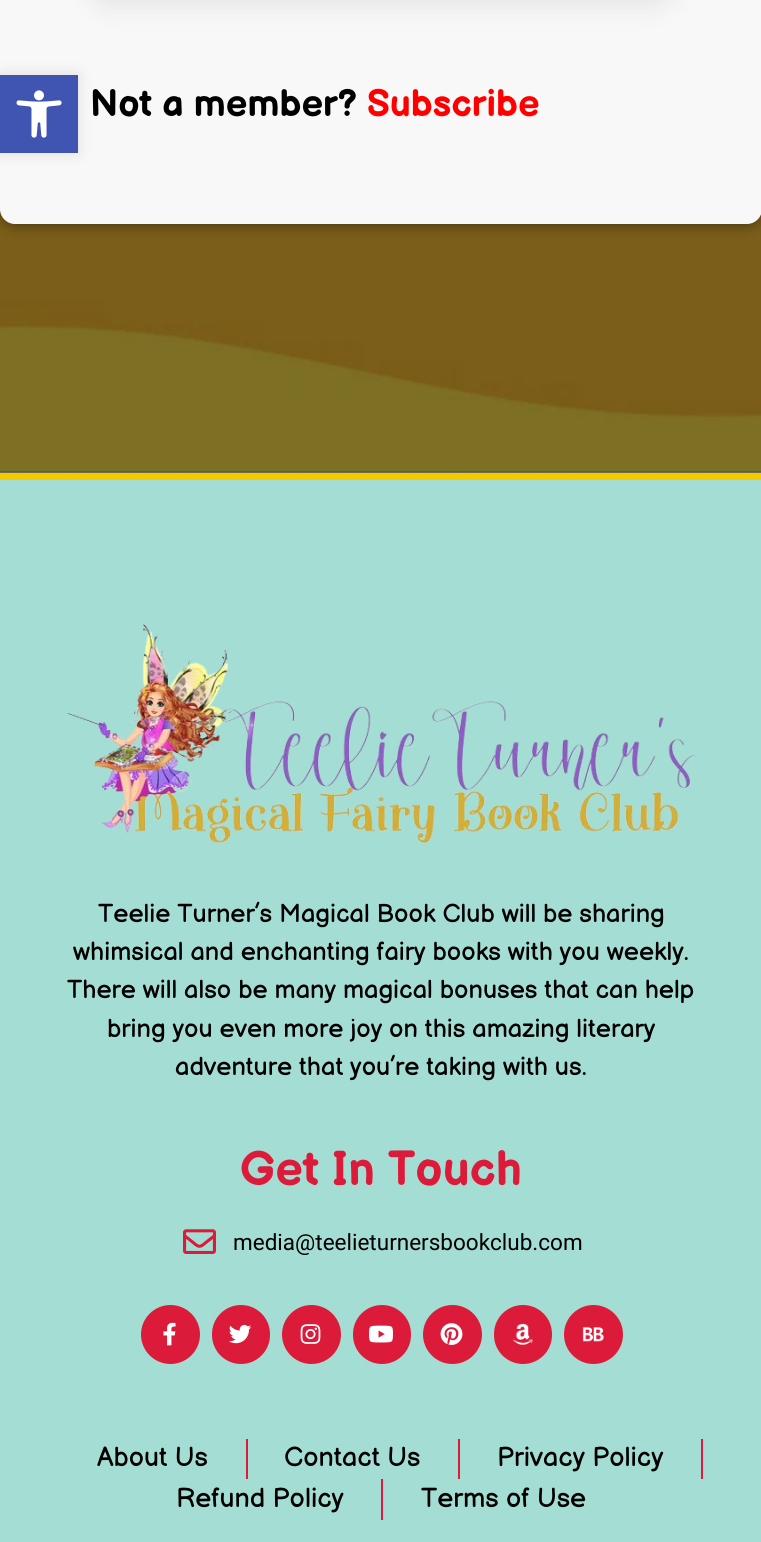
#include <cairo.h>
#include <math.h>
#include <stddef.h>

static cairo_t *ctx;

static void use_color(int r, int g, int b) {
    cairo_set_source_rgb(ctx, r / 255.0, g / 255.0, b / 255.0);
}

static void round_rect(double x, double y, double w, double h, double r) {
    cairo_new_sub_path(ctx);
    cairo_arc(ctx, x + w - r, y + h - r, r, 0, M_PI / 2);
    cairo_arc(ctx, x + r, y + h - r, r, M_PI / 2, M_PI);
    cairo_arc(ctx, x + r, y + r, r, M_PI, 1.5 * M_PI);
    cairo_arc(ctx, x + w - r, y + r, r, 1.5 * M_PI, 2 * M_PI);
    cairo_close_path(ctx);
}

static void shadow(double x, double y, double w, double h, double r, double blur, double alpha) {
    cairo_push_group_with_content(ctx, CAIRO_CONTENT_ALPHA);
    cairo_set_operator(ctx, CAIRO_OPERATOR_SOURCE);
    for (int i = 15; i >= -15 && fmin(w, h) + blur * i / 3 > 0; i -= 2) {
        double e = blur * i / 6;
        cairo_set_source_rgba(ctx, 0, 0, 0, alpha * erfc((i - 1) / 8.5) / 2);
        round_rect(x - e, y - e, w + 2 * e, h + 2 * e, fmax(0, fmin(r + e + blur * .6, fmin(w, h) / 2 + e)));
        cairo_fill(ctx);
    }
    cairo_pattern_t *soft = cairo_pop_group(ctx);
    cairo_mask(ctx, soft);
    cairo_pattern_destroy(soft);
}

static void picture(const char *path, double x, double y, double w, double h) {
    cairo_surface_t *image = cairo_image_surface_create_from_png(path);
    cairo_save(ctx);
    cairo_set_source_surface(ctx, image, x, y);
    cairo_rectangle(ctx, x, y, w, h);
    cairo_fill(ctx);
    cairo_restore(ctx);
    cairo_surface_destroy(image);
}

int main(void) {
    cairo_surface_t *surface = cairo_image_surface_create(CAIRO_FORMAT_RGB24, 761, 1542);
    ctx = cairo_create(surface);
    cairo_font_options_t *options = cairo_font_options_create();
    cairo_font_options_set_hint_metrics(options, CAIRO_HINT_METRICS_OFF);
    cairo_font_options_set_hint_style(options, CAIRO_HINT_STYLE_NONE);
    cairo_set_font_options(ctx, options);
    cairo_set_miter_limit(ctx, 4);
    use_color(255, 254, 250);
    cairo_paint(ctx);
    picture("img1.png", 9, 472, 736, 1);
    picture("img3.png", 0, 209, 761, 264);
    cairo_set_source_rgba(ctx, 0, 0, 0, 0.5);
    cairo_rectangle(ctx, 0, 209, 761, 264);
    cairo_fill(ctx);
    use_color(0, 0, 0);
    shadow(0, -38, 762, 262, 15, 7.5, 0.5);
    use_color(248, 248, 248);
    round_rect(0, -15, 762, 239, 15);
    cairo_fill(ctx);
    use_color(0, 0, 0);
    shadow(0, 75, 78, 78, 0, 7.5, 0.1);
    use_color(64, 84, 178);
    cairo_rectangle(ctx, 0, 75, 78, 78);
    cairo_fill(ctx);
    picture("img2.png", 16, 90, 46, 48);
    use_color(0, 0, 0);
    shadow(90, -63, 582, 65, 18, 15, 0.1);
    cairo_select_font_face(ctx, "Balsamiq Sans", CAIRO_FONT_SLANT_NORMAL, CAIRO_FONT_WEIGHT_BOLD);
    cairo_set_font_size(ctx, 37.5);
    use_color(0, 0, 0);
    cairo_move_to(ctx, 90, 116);
    cairo_show_text(ctx, "Not a member?");
    use_color(255, 0, 0);
    cairo_move_to(ctx, 367, 116);
    cairo_show_text(ctx, "Subscribe");
    use_color(164, 221, 212);
    cairo_rectangle(ctx, 0, 480, 761, 1062);
    cairo_fill(ctx);
    use_color(244, 203, 1);
    cairo_rectangle(ctx, 0, 473, 761, 7);
    cairo_fill(ctx);
    picture("img4.png", 67, 622, 629, 222);
    cairo_select_font_face(ctx, "Balsamiq Sans", CAIRO_FONT_SLANT_NORMAL, CAIRO_FONT_WEIGHT_NORMAL);
    cairo_set_font_size(ctx, 25.5);
    use_color(0, 0, 0);
    cairo_move_to(ctx, 98, 922);
    cairo_show_text(ctx, "Teelie Turner’s Magical Book Club will be sharing");
    cairo_move_to(ctx, 73, 960);
    cairo_show_text(ctx, "whimsical and enchanting fairy books with you weekly.");
    cairo_move_to(ctx, 67, 998);
    cairo_show_text(ctx, "There will also be many magical bonuses that can help");
    cairo_move_to(ctx, 107, 1037);
    cairo_show_text(ctx, "bring you even more joy on this amazing literary");
    cairo_move_to(ctx, 175, 1075);
    cairo_show_text(ctx, "adventure that you’re taking with us.");
    cairo_select_font_face(ctx, "Balsamiq Sans", CAIRO_FONT_SLANT_NORMAL, CAIRO_FONT_WEIGHT_BOLD);
    cairo_set_font_size(ctx, 48);
    use_color(220, 27, 58);
    cairo_move_to(ctx, 240, 1185);
    cairo_show_text(ctx, "Get In Touch");
    picture("img5.png", 183, 1229, 33, 25);
    cairo_select_font_face(ctx, "Roboto", CAIRO_FONT_SLANT_NORMAL, CAIRO_FONT_WEIGHT_NORMAL);
    cairo_set_font_size(ctx, 22.5);
    use_color(0, 0, 0);
    cairo_move_to(ctx, 233, 1250);
    cairo_show_text(ctx, "media@teelieturnersbookclub.com");
    use_color(220, 27, 58);
    cairo_new_path(ctx);
    cairo_arc(ctx, 170.5, 1334.5, 29.5, 0, 2 * M_PI);
    cairo_fill(ctx);
    picture("img6.png", 163, 1322, 13, 24);
    round_rect(212, 1305, 58, 59, 29);
    cairo_fill(ctx);
    picture("img7.png", 229, 1324, 23, 20);
    cairo_arc(ctx, 311.5, 1334.5, 29.5, 0, 2 * M_PI);
    cairo_fill(ctx);
    picture("img8.png", 300, 1324, 21, 20);
    round_rect(353, 1305, 58, 59, 29);
    cairo_fill(ctx);
    picture("img9.png", 369, 1325, 24, 18);
    cairo_arc(ctx, 452.5, 1334.5, 29.5, 0, 2 * M_PI);
    cairo_fill(ctx);
    picture("img10.png", 440, 1323, 23, 22);
    round_rect(494, 1305, 58, 59, 29);
    cairo_fill(ctx);
    picture("img11.png", 513, 1323, 20, 22);
    cairo_arc(ctx, 593.5, 1334.5, 29.5, 0, 2 * M_PI);
    cairo_fill(ctx);
    picture("img12.png", 582, 1327, 22, 15);
    cairo_select_font_face(ctx, "Balsamiq Sans", CAIRO_FONT_SLANT_NORMAL, CAIRO_FONT_WEIGHT_NORMAL);
    cairo_set_font_size(ctx, 27);
    use_color(0, 0, 0);
    cairo_move_to(ctx, 97, 1466);
    cairo_show_text(ctx, "About Us");
    use_color(220, 27, 58);
    cairo_rectangle(ctx, 246, 1439, 2, 40);
    cairo_fill(ctx);
    use_color(0, 0, 0);
    cairo_move_to(ctx, 284, 1466);
    cairo_show_text(ctx, "Contact Us");
    use_color(220, 27, 58);
    cairo_rectangle(ctx, 458, 1439, 2, 40);
    cairo_fill(ctx);
    use_color(0, 0, 0);
    cairo_move_to(ctx, 497, 1466);
    cairo_show_text(ctx, "Privacy Policy");
    use_color(220, 27, 58);
    cairo_rectangle(ctx, 701, 1439, 2, 40);
    cairo_fill(ctx);
    use_color(0, 0, 0);
    cairo_move_to(ctx, 176, 1507);
    cairo_show_text(ctx, "Refund Policy");
    use_color(220, 27, 58);
    cairo_rectangle(ctx, 381, 1479, 2, 41);
    cairo_fill(ctx);
    use_color(0, 0, 0);
    cairo_move_to(ctx, 421, 1507);
    cairo_show_text(ctx, "Terms of Use");
    cairo_surface_write_to_png(surface, "result.png");
    cairo_font_options_destroy(options);
    cairo_destroy(ctx);
    cairo_surface_destroy(surface);
    return 0;
}
